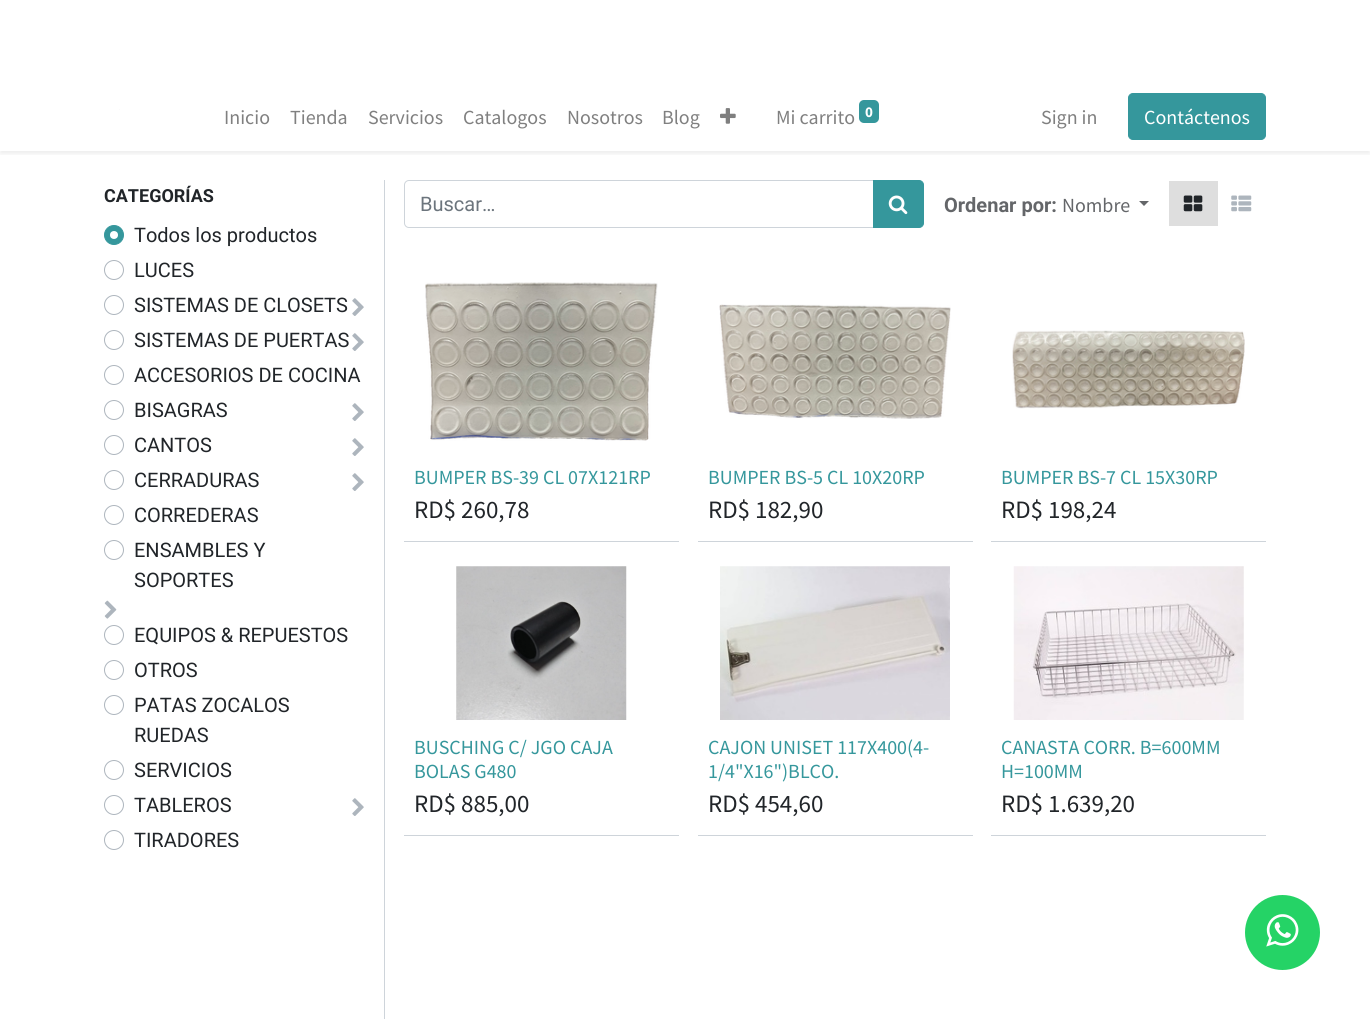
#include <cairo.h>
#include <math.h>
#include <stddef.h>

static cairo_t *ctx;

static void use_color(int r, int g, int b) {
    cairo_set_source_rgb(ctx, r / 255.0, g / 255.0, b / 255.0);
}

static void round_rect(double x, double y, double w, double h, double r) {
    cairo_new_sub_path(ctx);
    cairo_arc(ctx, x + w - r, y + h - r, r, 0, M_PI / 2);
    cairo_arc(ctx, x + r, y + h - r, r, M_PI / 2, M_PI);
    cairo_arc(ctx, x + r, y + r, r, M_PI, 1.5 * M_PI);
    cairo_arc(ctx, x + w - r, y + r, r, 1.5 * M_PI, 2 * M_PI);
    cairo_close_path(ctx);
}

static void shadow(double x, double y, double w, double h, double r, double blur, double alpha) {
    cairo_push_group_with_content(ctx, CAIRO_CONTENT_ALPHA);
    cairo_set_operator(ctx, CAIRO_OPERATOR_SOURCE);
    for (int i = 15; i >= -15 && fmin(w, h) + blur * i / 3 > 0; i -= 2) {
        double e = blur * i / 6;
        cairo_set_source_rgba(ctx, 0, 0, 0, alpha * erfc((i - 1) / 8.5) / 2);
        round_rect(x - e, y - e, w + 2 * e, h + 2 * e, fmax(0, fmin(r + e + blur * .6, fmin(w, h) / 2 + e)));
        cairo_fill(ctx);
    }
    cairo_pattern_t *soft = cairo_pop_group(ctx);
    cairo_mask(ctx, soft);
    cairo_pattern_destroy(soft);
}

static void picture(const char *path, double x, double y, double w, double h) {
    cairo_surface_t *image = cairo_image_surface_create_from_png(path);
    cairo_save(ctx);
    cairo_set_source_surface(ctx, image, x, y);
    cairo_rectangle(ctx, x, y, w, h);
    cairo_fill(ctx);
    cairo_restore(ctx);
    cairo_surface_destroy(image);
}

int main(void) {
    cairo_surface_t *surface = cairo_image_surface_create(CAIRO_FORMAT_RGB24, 1370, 1019);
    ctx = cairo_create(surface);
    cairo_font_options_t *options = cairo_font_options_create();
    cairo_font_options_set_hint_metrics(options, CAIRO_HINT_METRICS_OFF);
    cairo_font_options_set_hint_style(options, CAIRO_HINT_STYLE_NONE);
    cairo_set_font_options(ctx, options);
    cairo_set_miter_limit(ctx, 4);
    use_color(255, 255, 255);
    cairo_paint(ctx);
    cairo_save(ctx);
    cairo_rectangle(ctx, 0, 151, 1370, 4);
    cairo_clip(ctx);
    use_color(0, 0, 0);
    shadow(0, 84, 1370, 70, 0, 2.5, 0.07);
    cairo_restore(ctx);
    use_color(251, 250, 251);
    cairo_rectangle(ctx, 119, 109, 1, 1);
    cairo_fill(ctx);
    cairo_select_font_face(ctx, "Source Sans Pro", CAIRO_FONT_SLANT_NORMAL, CAIRO_FONT_WEIGHT_NORMAL);
    cairo_set_font_size(ctx, 20);
    use_color(128, 128, 128);
    cairo_move_to(ctx, 224, 124);
    cairo_show_text(ctx, "Inicio");
    cairo_move_to(ctx, 290, 124);
    cairo_show_text(ctx, "Tienda");
    cairo_move_to(ctx, 368, 124);
    cairo_show_text(ctx, "Servicios");
    cairo_move_to(ctx, 463, 124);
    cairo_show_text(ctx, "Catalogos");
    cairo_move_to(ctx, 567, 124);
    cairo_show_text(ctx, "Nosotros");
    cairo_move_to(ctx, 662, 124);
    cairo_show_text(ctx, "Blog");
    picture("img1.png", 720, 108, 16, 16);
    cairo_move_to(ctx, 776, 124);
    cairo_show_text(ctx, "Mi carrito");
    use_color(53, 151, 156);
    round_rect(859, 100, 20, 23, 5);
    cairo_fill(ctx);
    cairo_select_font_face(ctx, "Source Sans Pro", CAIRO_FONT_SLANT_NORMAL, CAIRO_FONT_WEIGHT_BOLD);
    cairo_set_font_size(ctx, 15);
    use_color(255, 255, 255);
    cairo_move_to(ctx, 865, 117);
    cairo_show_text(ctx, "0");
    cairo_select_font_face(ctx, "Source Sans Pro", CAIRO_FONT_SLANT_NORMAL, CAIRO_FONT_WEIGHT_NORMAL);
    cairo_set_font_size(ctx, 20);
    use_color(128, 128, 128);
    cairo_move_to(ctx, 1041, 124);
    cairo_show_text(ctx, "Sign in");
    use_color(53, 151, 156);
    round_rect(1128.5, 93.5, 137, 46, 4.5);
    cairo_fill_preserve(ctx);
    cairo_set_line_width(ctx, 1);
    cairo_stroke(ctx);
    use_color(255, 255, 255);
    cairo_move_to(ctx, 1144, 124);
    cairo_show_text(ctx, "Contáctenos");
    use_color(206, 212, 218);
    cairo_rectangle(ctx, 384, 180, 1, 839);
    cairo_fill(ctx);
    cairo_select_font_face(ctx, "Roboto", CAIRO_FONT_SLANT_NORMAL, CAIRO_FONT_WEIGHT_BOLD);
    cairo_set_font_size(ctx, 18);
    use_color(33, 37, 41);
    cairo_move_to(ctx, 104, 202);
    cairo_show_text(ctx, "CATEGORÍAS");
    use_color(53, 151, 156);
    cairo_new_path(ctx);
    cairo_arc(ctx, 114, 235, 9.5, 0, 2 * M_PI);
    cairo_fill_preserve(ctx);
    cairo_stroke(ctx);
    cairo_select_font_face(ctx, "Roboto", CAIRO_FONT_SLANT_NORMAL, CAIRO_FONT_WEIGHT_NORMAL);
    cairo_set_font_size(ctx, 20);
    use_color(33, 37, 41);
    cairo_move_to(ctx, 134, 242);
    cairo_show_text(ctx, "Todos los productos");
    use_color(255, 255, 255);
    cairo_new_path(ctx);
    cairo_arc(ctx, 114, 235, 4, 0, 2 * M_PI);
    cairo_fill(ctx);
    cairo_arc(ctx, 114, 270, 9.5, 0, 2 * M_PI);
    use_color(173, 181, 189);
    cairo_stroke(ctx);
    use_color(33, 37, 41);
    cairo_move_to(ctx, 134, 277);
    cairo_show_text(ctx, "LUCES");
    cairo_new_path(ctx);
    cairo_arc(ctx, 114, 305, 9.5, 0, 2 * M_PI);
    use_color(173, 181, 189);
    cairo_stroke(ctx);
    use_color(33, 37, 41);
    cairo_move_to(ctx, 134, 312);
    cairo_show_text(ctx, "SISTEMAS DE CLOSETS");
    picture("img2.png", 352, 298, 12, 18);
    cairo_arc(ctx, 114, 340, 9.5, 0, 2 * M_PI);
    use_color(173, 181, 189);
    cairo_stroke(ctx);
    use_color(33, 37, 41);
    cairo_move_to(ctx, 134, 347);
    cairo_show_text(ctx, "SISTEMAS DE PUERTAS");
    picture("img2.png", 352, 333, 12, 18);
    cairo_arc(ctx, 114, 375, 9.5, 0, 2 * M_PI);
    use_color(173, 181, 189);
    cairo_stroke(ctx);
    use_color(33, 37, 41);
    cairo_move_to(ctx, 134, 382);
    cairo_show_text(ctx, "ACCESORIOS DE COCINA");
    cairo_new_path(ctx);
    cairo_arc(ctx, 114, 410, 9.5, 0, 2 * M_PI);
    use_color(173, 181, 189);
    cairo_stroke(ctx);
    use_color(33, 37, 41);
    cairo_move_to(ctx, 134, 417);
    cairo_show_text(ctx, "BISAGRAS");
    picture("img2.png", 352, 403, 12, 18);
    cairo_arc(ctx, 114, 445, 9.5, 0, 2 * M_PI);
    use_color(173, 181, 189);
    cairo_stroke(ctx);
    use_color(33, 37, 41);
    cairo_move_to(ctx, 134, 452);
    cairo_show_text(ctx, "CANTOS");
    picture("img2.png", 352, 438, 12, 18);
    cairo_arc(ctx, 114, 480, 9.5, 0, 2 * M_PI);
    use_color(173, 181, 189);
    cairo_stroke(ctx);
    use_color(33, 37, 41);
    cairo_move_to(ctx, 134, 487);
    cairo_show_text(ctx, "CERRADURAS");
    picture("img2.png", 352, 473, 12, 18);
    cairo_arc(ctx, 114, 515, 9.5, 0, 2 * M_PI);
    use_color(173, 181, 189);
    cairo_stroke(ctx);
    use_color(33, 37, 41);
    cairo_move_to(ctx, 134, 522);
    cairo_show_text(ctx, "CORREDERAS");
    cairo_new_path(ctx);
    cairo_arc(ctx, 114, 550, 9.5, 0, 2 * M_PI);
    use_color(173, 181, 189);
    cairo_stroke(ctx);
    use_color(33, 37, 41);
    cairo_move_to(ctx, 134, 557);
    cairo_show_text(ctx, "ENSAMBLES Y");
    cairo_move_to(ctx, 134, 587);
    cairo_show_text(ctx, "SOPORTES");
    picture("img3.png", 104, 600, 13, 19);
    cairo_arc(ctx, 114, 635, 9.5, 0, 2 * M_PI);
    use_color(173, 181, 189);
    cairo_stroke(ctx);
    use_color(33, 37, 41);
    cairo_move_to(ctx, 134, 642);
    cairo_show_text(ctx, "EQUIPOS & REPUESTOS");
    cairo_new_path(ctx);
    cairo_arc(ctx, 114, 670, 9.5, 0, 2 * M_PI);
    use_color(173, 181, 189);
    cairo_stroke(ctx);
    use_color(33, 37, 41);
    cairo_move_to(ctx, 134, 677);
    cairo_show_text(ctx, "OTROS");
    cairo_new_path(ctx);
    cairo_arc(ctx, 114, 705, 9.5, 0, 2 * M_PI);
    use_color(173, 181, 189);
    cairo_stroke(ctx);
    use_color(33, 37, 41);
    cairo_move_to(ctx, 134, 712);
    cairo_show_text(ctx, "PATAS ZOCALOS");
    cairo_move_to(ctx, 134, 742);
    cairo_show_text(ctx, "RUEDAS");
    cairo_new_path(ctx);
    cairo_arc(ctx, 114, 770, 9.5, 0, 2 * M_PI);
    use_color(173, 181, 189);
    cairo_stroke(ctx);
    use_color(33, 37, 41);
    cairo_move_to(ctx, 134, 777);
    cairo_show_text(ctx, "SERVICIOS");
    cairo_new_path(ctx);
    cairo_arc(ctx, 114, 805, 9.5, 0, 2 * M_PI);
    use_color(173, 181, 189);
    cairo_stroke(ctx);
    use_color(33, 37, 41);
    cairo_move_to(ctx, 134, 812);
    cairo_show_text(ctx, "TABLEROS");
    picture("img2.png", 352, 798, 12, 18);
    cairo_arc(ctx, 114, 840, 9.5, 0, 2 * M_PI);
    use_color(173, 181, 189);
    cairo_stroke(ctx);
    use_color(33, 37, 41);
    cairo_move_to(ctx, 134, 847);
    cairo_show_text(ctx, "TIRADORES");
    cairo_new_path(ctx);
    cairo_move_to(ctx, 409, 180.5);
    cairo_line_to(ctx, 873.5, 180.5);
    cairo_line_to(ctx, 873.5, 227.5);
    cairo_line_to(ctx, 409, 227.5);
    cairo_curve_to(ctx, 406.5, 227.5, 404.5, 225.5, 404.5, 223);
    cairo_line_to(ctx, 404.5, 185);
    cairo_curve_to(ctx, 404.5, 182.5, 406.5, 180.5, 409, 180.5);
    cairo_close_path(ctx);
    use_color(206, 212, 218);
    cairo_stroke(ctx);
    use_color(108, 117, 125);
    cairo_move_to(ctx, 420, 211);
    cairo_show_text(ctx, "Buscar…");
    use_color(53, 151, 156);
    cairo_new_path(ctx);
    cairo_move_to(ctx, 873.5, 180.5);
    cairo_line_to(ctx, 919, 180.5);
    cairo_curve_to(ctx, 921.5, 180.5, 923.5, 182.5, 923.5, 185);
    cairo_line_to(ctx, 923.5, 223);
    cairo_curve_to(ctx, 923.5, 225.5, 921.5, 227.5, 919, 227.5);
    cairo_line_to(ctx, 873.5, 227.5);
    cairo_close_path(ctx);
    cairo_fill_preserve(ctx);
    cairo_stroke(ctx);
    picture("img4.png", 888, 195, 20, 20);
    cairo_select_font_face(ctx, "Roboto", CAIRO_FONT_SLANT_NORMAL, CAIRO_FONT_WEIGHT_BOLD);
    use_color(100, 102, 105);
    cairo_move_to(ctx, 944, 212);
    cairo_show_text(ctx, "Ordenar por:");
    cairo_select_font_face(ctx, "Source Sans Pro", CAIRO_FONT_SLANT_NORMAL, CAIRO_FONT_WEIGHT_NORMAL);
    cairo_move_to(ctx, 1062, 212);
    cairo_show_text(ctx, "Nombre");
    cairo_new_path(ctx);
    cairo_move_to(ctx, 1139, 201);
    cairo_line_to(ctx, 1149, 201);
    cairo_line_to(ctx, 1144, 206);
    cairo_close_path(ctx);
    cairo_fill(ctx);
    use_color(222, 222, 222);
    cairo_rectangle(ctx, 1169, 181, 49, 45);
    cairo_fill(ctx);
    picture("img5.png", 1183, 195, 20, 17);
    picture("img6.png", 1231, 195, 21, 17);
    use_color(206, 212, 218);
    cairo_rectangle(ctx, 404, 541, 275, 1);
    cairo_fill(ctx);
    picture("img7.png", 425, 282, 233, 159);
    use_color(53, 151, 156);
    cairo_move_to(ctx, 414, 484);
    cairo_show_text(ctx, "BUMPER BS-39 CL 07X121RP");
    cairo_set_font_size(ctx, 25);
    use_color(33, 37, 41);
    cairo_move_to(ctx, 414, 518);
    cairo_show_text(ctx, "RD$ 260,78");
    use_color(206, 212, 218);
    cairo_rectangle(ctx, 698, 541, 275, 1);
    cairo_fill(ctx);
    picture("img8.png", 719, 304, 232, 115);
    cairo_set_font_size(ctx, 20);
    use_color(53, 151, 156);
    cairo_move_to(ctx, 708, 484);
    cairo_show_text(ctx, "BUMPER BS-5 CL 10X20RP");
    cairo_set_font_size(ctx, 25);
    use_color(33, 37, 41);
    cairo_move_to(ctx, 708, 518);
    cairo_show_text(ctx, "RD$ 182,90");
    use_color(206, 212, 218);
    cairo_rectangle(ctx, 991, 541, 275, 1);
    cairo_fill(ctx);
    picture("img9.png", 1012, 330, 233, 79);
    cairo_set_font_size(ctx, 20);
    use_color(53, 151, 156);
    cairo_move_to(ctx, 1001, 484);
    cairo_show_text(ctx, "BUMPER BS-7 CL 15X30RP");
    cairo_set_font_size(ctx, 25);
    use_color(33, 37, 41);
    cairo_move_to(ctx, 1001, 518);
    cairo_show_text(ctx, "RD$ 198,24");
    use_color(206, 212, 218);
    cairo_rectangle(ctx, 404, 835, 275, 1);
    cairo_fill(ctx);
    picture("img10.png", 456, 566, 171, 154);
    cairo_set_font_size(ctx, 20);
    use_color(53, 151, 156);
    cairo_move_to(ctx, 414, 754);
    cairo_show_text(ctx, "BUSCHING C/ JGO CAJA");
    cairo_move_to(ctx, 414, 778);
    cairo_show_text(ctx, "BOLAS G480");
    cairo_set_font_size(ctx, 25);
    use_color(33, 37, 41);
    cairo_move_to(ctx, 414, 812);
    cairo_show_text(ctx, "RD$ 885,00");
    use_color(206, 212, 218);
    cairo_rectangle(ctx, 698, 835, 275, 1);
    cairo_fill(ctx);
    picture("img11.png", 720, 566, 230, 154);
    cairo_set_font_size(ctx, 20);
    use_color(53, 151, 156);
    cairo_move_to(ctx, 708, 754);
    cairo_show_text(ctx, "CAJON UNISET 117X400(4-");
    cairo_move_to(ctx, 708, 778);
    cairo_show_text(ctx, "1/4\"X16\")BLCO.");
    cairo_set_font_size(ctx, 25);
    use_color(33, 37, 41);
    cairo_move_to(ctx, 708, 812);
    cairo_show_text(ctx, "RD$ 454,60");
    use_color(206, 212, 218);
    cairo_rectangle(ctx, 991, 835, 275, 1);
    cairo_fill(ctx);
    picture("img12.png", 1013, 566, 231, 154);
    cairo_set_font_size(ctx, 20);
    use_color(53, 151, 156);
    cairo_move_to(ctx, 1001, 754);
    cairo_show_text(ctx, "CANASTA CORR. B=600MM");
    cairo_move_to(ctx, 1001, 778);
    cairo_show_text(ctx, "H=100MM");
    cairo_set_font_size(ctx, 25);
    use_color(33, 37, 41);
    cairo_move_to(ctx, 1001, 812);
    cairo_show_text(ctx, "RD$ 1.639,20");
    use_color(37, 211, 102);
    cairo_new_path(ctx);
    cairo_arc(ctx, 1282.5, 932.5, 37.5, 0, 2 * M_PI);
    cairo_fill(ctx);
    picture("img13.png", 1266, 914, 33, 33);
    cairo_surface_write_to_png(surface, "result.png");
    cairo_font_options_destroy(options);
    cairo_destroy(ctx);
    cairo_surface_destroy(surface);
    return 0;
}
